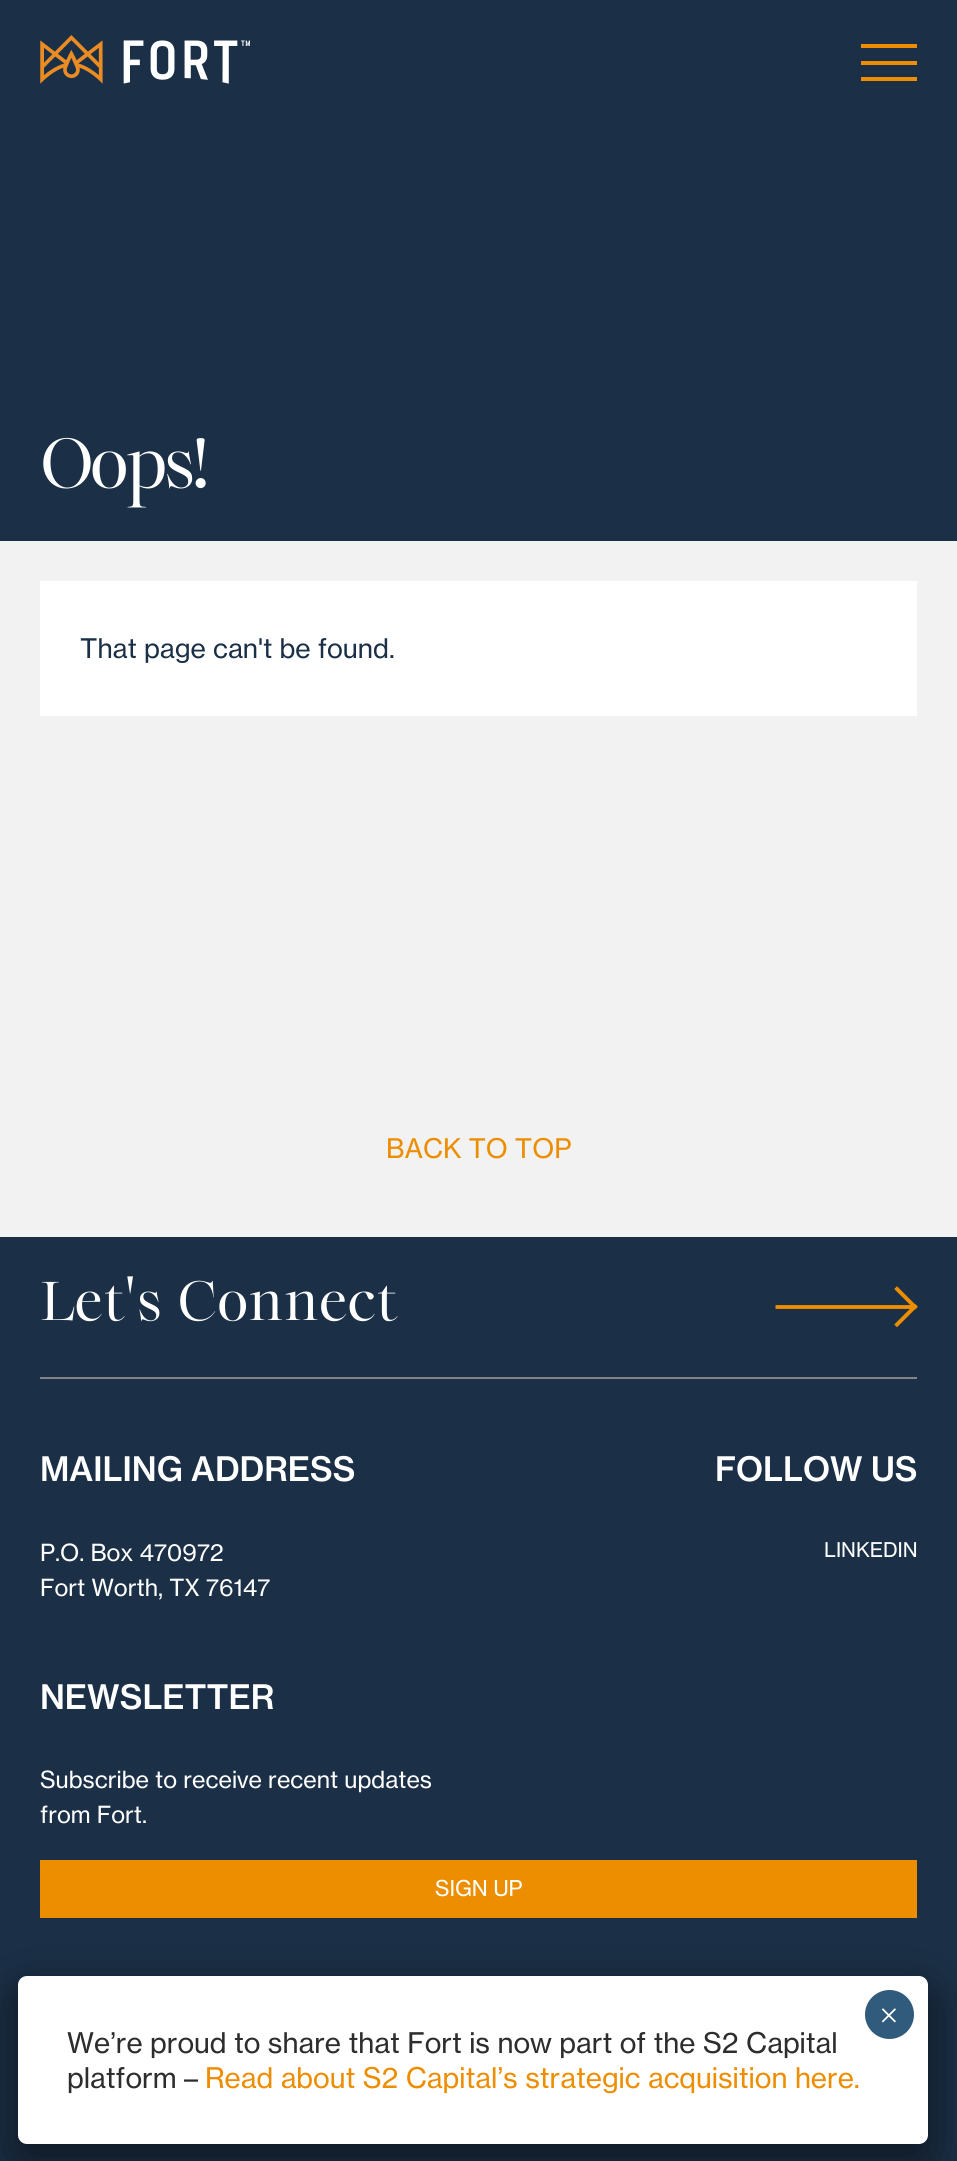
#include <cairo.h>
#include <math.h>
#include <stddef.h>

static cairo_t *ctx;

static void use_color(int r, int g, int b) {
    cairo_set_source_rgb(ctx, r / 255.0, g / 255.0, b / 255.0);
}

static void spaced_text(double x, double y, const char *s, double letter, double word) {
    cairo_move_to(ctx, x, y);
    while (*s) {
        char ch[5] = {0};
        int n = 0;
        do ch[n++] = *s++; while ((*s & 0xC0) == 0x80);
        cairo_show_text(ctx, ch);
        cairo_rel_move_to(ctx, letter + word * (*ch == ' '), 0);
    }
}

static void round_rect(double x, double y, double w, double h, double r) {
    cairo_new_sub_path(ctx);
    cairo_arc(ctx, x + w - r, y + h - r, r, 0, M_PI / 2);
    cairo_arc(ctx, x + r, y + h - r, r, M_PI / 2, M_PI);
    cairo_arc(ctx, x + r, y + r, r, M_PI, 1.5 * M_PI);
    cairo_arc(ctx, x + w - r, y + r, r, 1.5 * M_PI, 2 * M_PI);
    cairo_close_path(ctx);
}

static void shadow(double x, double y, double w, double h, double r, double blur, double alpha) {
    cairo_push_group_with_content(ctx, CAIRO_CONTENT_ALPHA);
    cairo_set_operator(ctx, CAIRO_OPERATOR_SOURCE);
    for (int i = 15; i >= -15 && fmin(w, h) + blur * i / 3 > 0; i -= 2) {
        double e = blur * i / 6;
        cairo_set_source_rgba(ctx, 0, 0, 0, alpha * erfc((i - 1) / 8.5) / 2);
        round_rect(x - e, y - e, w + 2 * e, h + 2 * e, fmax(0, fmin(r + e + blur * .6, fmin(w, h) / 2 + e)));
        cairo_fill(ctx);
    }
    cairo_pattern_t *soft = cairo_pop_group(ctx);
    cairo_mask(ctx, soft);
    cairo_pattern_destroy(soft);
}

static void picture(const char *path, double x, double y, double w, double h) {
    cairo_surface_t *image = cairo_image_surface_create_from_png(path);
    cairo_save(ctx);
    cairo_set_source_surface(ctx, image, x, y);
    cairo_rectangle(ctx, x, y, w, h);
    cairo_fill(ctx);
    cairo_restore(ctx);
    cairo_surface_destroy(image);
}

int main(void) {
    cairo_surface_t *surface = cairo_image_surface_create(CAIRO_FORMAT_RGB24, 957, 2161);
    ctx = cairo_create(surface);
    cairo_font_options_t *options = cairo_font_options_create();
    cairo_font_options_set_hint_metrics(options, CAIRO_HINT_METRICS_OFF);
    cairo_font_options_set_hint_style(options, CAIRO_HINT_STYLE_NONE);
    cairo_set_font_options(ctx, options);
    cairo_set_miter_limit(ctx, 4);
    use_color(242, 242, 242);
    cairo_paint(ctx);
    use_color(27, 48, 71);
    cairo_rectangle(ctx, 0, 0, 957, 541);
    cairo_fill(ctx);
    picture("img1.png", 40, 35, 210, 49);
    use_color(237, 141, 0);
    cairo_rectangle(ctx, 861, 61, 56, 4);
    cairo_fill(ctx);
    cairo_rectangle(ctx, 861, 44, 56, 4);
    cairo_fill(ctx);
    cairo_rectangle(ctx, 861, 77, 56, 4);
    cairo_fill(ctx);
    cairo_select_font_face(ctx, "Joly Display", CAIRO_FONT_SLANT_NORMAL, CAIRO_FONT_WEIGHT_NORMAL);
    cairo_set_font_size(ctx, 75);
    use_color(255, 255, 255);
    spaced_text(40, 487, "Oops!", -3.5, 0);
    cairo_rectangle(ctx, 40, 581, 877, 135);
    cairo_fill(ctx);
    cairo_select_font_face(ctx, "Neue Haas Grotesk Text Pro", CAIRO_FONT_SLANT_NORMAL, CAIRO_FONT_WEIGHT_NORMAL);
    cairo_set_font_size(ctx, 26.6);
    use_color(27, 48, 71);
    cairo_move_to(ctx, 80, 658);
    cairo_show_text(ctx, "That page can't be found.");
    use_color(237, 141, 0);
    cairo_move_to(ctx, 386, 1158);
    cairo_show_text(ctx, "BACK TO TOP");
    use_color(27, 48, 71);
    cairo_rectangle(ctx, 0, 1237, 957, 924);
    cairo_fill(ctx);
    use_color(129, 131, 133);
    cairo_rectangle(ctx, 40, 1377, 877, 2);
    cairo_fill(ctx);
    cairo_select_font_face(ctx, "Joly Display", CAIRO_FONT_SLANT_NORMAL, CAIRO_FONT_WEIGHT_NORMAL);
    cairo_set_font_size(ctx, 60);
    use_color(255, 255, 255);
    cairo_move_to(ctx, 40, 1320);
    cairo_show_text(ctx, "Let's Connect");
    cairo_new_path(ctx);
    cairo_move_to(ctx, 777.5, 1307);
    cairo_line_to(ctx, 912, 1307);
    cairo_move_to(ctx, 897, 1289);
    cairo_line_to(ctx, 915, 1307);
    cairo_move_to(ctx, 897, 1324.5);
    cairo_line_to(ctx, 915, 1306.5);
    use_color(237, 141, 0);
    cairo_set_line_width(ctx, 3.9);
    cairo_set_line_cap(ctx, CAIRO_LINE_CAP_SQUARE);
    cairo_stroke(ctx);
    cairo_select_font_face(ctx, "Neue Haas Grotesk Text Pro Medium", CAIRO_FONT_SLANT_NORMAL, CAIRO_FONT_WEIGHT_NORMAL);
    cairo_set_font_size(ctx, 33.25);
    use_color(255, 255, 255);
    cairo_move_to(ctx, 40, 1481);
    cairo_show_text(ctx, "MAILING ADDRESS");
    cairo_select_font_face(ctx, "Neue Haas Grotesk Text Pro", CAIRO_FONT_SLANT_NORMAL, CAIRO_FONT_WEIGHT_NORMAL);
    cairo_set_font_size(ctx, 23.25);
    cairo_move_to(ctx, 40, 1561);
    cairo_show_text(ctx, "P.O. Box 470972");
    cairo_move_to(ctx, 40, 1596);
    cairo_show_text(ctx, "Fort Worth, TX 76147");
    cairo_select_font_face(ctx, "Neue Haas Grotesk Text Pro Medium", CAIRO_FONT_SLANT_NORMAL, CAIRO_FONT_WEIGHT_NORMAL);
    cairo_set_font_size(ctx, 33.25);
    cairo_move_to(ctx, 715, 1481);
    cairo_show_text(ctx, "FOLLOW US");
    cairo_select_font_face(ctx, "Neue Haas Grotesk Text Pro", CAIRO_FONT_SLANT_NORMAL, CAIRO_FONT_WEIGHT_NORMAL);
    cairo_set_font_size(ctx, 20);
    cairo_move_to(ctx, 824, 1557);
    cairo_show_text(ctx, "LINKEDIN");
    cairo_select_font_face(ctx, "Neue Haas Grotesk Text Pro Medium", CAIRO_FONT_SLANT_NORMAL, CAIRO_FONT_WEIGHT_NORMAL);
    cairo_set_font_size(ctx, 33.25);
    cairo_move_to(ctx, 40, 1709);
    cairo_show_text(ctx, "NEWSLETTER");
    cairo_select_font_face(ctx, "Neue Haas Grotesk Text Pro", CAIRO_FONT_SLANT_NORMAL, CAIRO_FONT_WEIGHT_NORMAL);
    cairo_set_font_size(ctx, 23.25);
    cairo_move_to(ctx, 40, 1788);
    cairo_show_text(ctx, "Subscribe to receive recent updates");
    cairo_move_to(ctx, 40, 1823);
    cairo_show_text(ctx, "from Fort.");
    use_color(237, 141, 0);
    cairo_rectangle(ctx, 40, 1860, 877, 58);
    cairo_fill(ctx);
    cairo_set_font_size(ctx, 21.5);
    use_color(255, 255, 255);
    cairo_move_to(ctx, 435, 1896);
    cairo_show_text(ctx, "SIGN UP");
    use_color(2, 2, 2);
    shadow(11, 1986, 924, 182, 16, 22, 0.5);
    use_color(255, 255, 255);
    round_rect(18, 1976, 910, 168, 9);
    cairo_fill(ctx);
    use_color(49, 91, 124);
    cairo_arc(ctx, 889.5, 2014.5, 24.5, 0, 2 * M_PI);
    cairo_fill(ctx);
    cairo_select_font_face(ctx, "Liberation Serif", CAIRO_FONT_SLANT_NORMAL, CAIRO_FONT_WEIGHT_NORMAL);
    cairo_set_font_size(ctx, 35);
    use_color(255, 255, 255);
    cairo_move_to(ctx, 879, 2027);
    cairo_show_text(ctx, "×");
    cairo_select_font_face(ctx, "Neue Haas Grotesk Text Pro", CAIRO_FONT_SLANT_NORMAL, CAIRO_FONT_WEIGHT_NORMAL);
    cairo_set_font_size(ctx, 28);
    use_color(45, 45, 45);
    cairo_move_to(ctx, 67, 2053);
    cairo_show_text(ctx, "We’re proud to share that Fort is now part of the S2 Capital");
    cairo_move_to(ctx, 67, 2088);
    cairo_show_text(ctx, "platform –");
    use_color(237, 141, 0);
    cairo_move_to(ctx, 205, 2088);
    cairo_show_text(ctx, "Read about S2 Capital’s strategic acquisition here.");
    cairo_surface_write_to_png(surface, "result.png");
    cairo_font_options_destroy(options);
    cairo_destroy(ctx);
    cairo_surface_destroy(surface);
    return 0;
}
